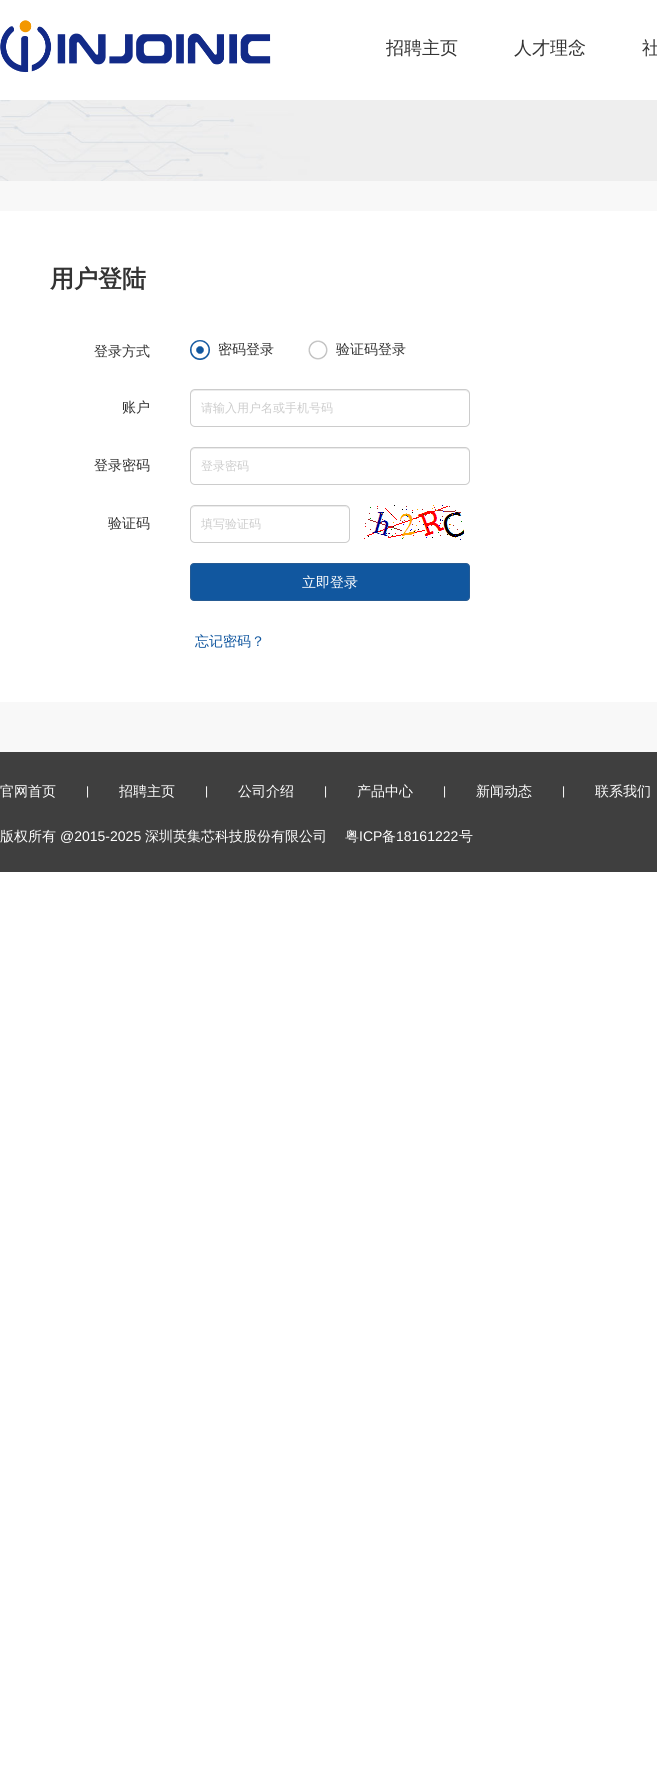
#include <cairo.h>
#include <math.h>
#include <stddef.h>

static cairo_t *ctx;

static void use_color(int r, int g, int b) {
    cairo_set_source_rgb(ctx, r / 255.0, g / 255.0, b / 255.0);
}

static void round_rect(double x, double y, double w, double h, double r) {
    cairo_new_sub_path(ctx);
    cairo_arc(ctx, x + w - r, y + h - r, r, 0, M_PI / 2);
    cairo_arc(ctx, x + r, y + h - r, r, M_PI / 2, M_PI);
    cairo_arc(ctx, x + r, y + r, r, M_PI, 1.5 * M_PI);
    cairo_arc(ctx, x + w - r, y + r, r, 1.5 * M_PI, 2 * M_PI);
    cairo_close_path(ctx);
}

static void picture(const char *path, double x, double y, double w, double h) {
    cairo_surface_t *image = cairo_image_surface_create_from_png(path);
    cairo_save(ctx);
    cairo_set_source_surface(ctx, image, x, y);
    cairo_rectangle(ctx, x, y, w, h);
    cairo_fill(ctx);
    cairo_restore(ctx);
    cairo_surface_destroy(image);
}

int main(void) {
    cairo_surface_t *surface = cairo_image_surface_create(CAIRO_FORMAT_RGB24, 657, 1767);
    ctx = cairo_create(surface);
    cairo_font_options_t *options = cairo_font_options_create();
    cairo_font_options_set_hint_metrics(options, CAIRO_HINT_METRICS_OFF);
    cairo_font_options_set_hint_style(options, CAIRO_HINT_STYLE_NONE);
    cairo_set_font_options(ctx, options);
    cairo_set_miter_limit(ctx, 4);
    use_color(255, 255, 255);
    cairo_paint(ctx);
    picture("img1.png", 0, 20, 271, 53);
    cairo_select_font_face(ctx, "WenQuanYi Zen Hei Medium", CAIRO_FONT_SLANT_NORMAL, CAIRO_FONT_WEIGHT_NORMAL);
    cairo_set_font_size(ctx, 18);
    use_color(51, 51, 51);
    cairo_move_to(ctx, 386, 54);
    cairo_show_text(ctx, "招聘主页");
    cairo_move_to(ctx, 514, 54);
    cairo_show_text(ctx, "人才理念");
    cairo_move_to(ctx, 642, 54);
    cairo_show_text(ctx, "社");
    picture("img2.png", 0, 100, 657, 81);
    use_color(248, 248, 248);
    cairo_rectangle(ctx, 0, 181, 657, 571);
    cairo_fill(ctx);
    use_color(255, 255, 255);
    cairo_rectangle(ctx, 0, 211, 657, 491);
    cairo_fill(ctx);
    cairo_select_font_face(ctx, "WenQuanYi Zen Hei", CAIRO_FONT_SLANT_NORMAL, CAIRO_FONT_WEIGHT_BOLD);
    cairo_set_font_size(ctx, 24);
    use_color(51, 51, 51);
    cairo_move_to(ctx, 50, 287);
    cairo_show_text(ctx, "用户登陆");
    cairo_select_font_face(ctx, "WenQuanYi Zen Hei Medium", CAIRO_FONT_SLANT_NORMAL, CAIRO_FONT_WEIGHT_NORMAL);
    cairo_set_font_size(ctx, 14);
    cairo_move_to(ctx, 94, 356);
    cairo_show_text(ctx, "登录方式");
    picture("img3.png", 190, 340, 20, 20);
    cairo_move_to(ctx, 218, 354);
    cairo_show_text(ctx, "密码登录");
    picture("img4.png", 308, 340, 20, 20);
    cairo_move_to(ctx, 336, 354);
    cairo_show_text(ctx, "验证码登录");
    cairo_move_to(ctx, 122, 412);
    cairo_show_text(ctx, "账户");
    use_color(236, 236, 236);
    cairo_new_path(ctx);
    cairo_move_to(ctx, 195, 391);
    cairo_line_to(ctx, 465, 391);
    cairo_curve_to(ctx, 467, 391, 469, 393, 469, 395);
    cairo_curve_to(ctx, 469, 392, 468, 390, 465, 390);
    cairo_line_to(ctx, 195, 390);
    cairo_curve_to(ctx, 192, 390, 191, 392, 191, 395);
    cairo_curve_to(ctx, 191, 393, 193, 391, 195, 391);
    cairo_close_path(ctx);
    cairo_fill(ctx);
    round_rect(190.5, 389.5, 279, 37, 4.5);
    use_color(204, 204, 204);
    cairo_set_line_width(ctx, 1);
    cairo_stroke(ctx);
    cairo_set_font_size(ctx, 12);
    cairo_move_to(ctx, 201, 412);
    cairo_show_text(ctx, "请输入用户名或手机号码");
    cairo_set_font_size(ctx, 14);
    use_color(51, 51, 51);
    cairo_move_to(ctx, 94, 470);
    cairo_show_text(ctx, "登录密码");
    use_color(236, 236, 236);
    cairo_new_path(ctx);
    cairo_move_to(ctx, 195, 449);
    cairo_line_to(ctx, 465, 449);
    cairo_curve_to(ctx, 467, 449, 469, 451, 469, 453);
    cairo_curve_to(ctx, 469, 450, 468, 448, 465, 448);
    cairo_line_to(ctx, 195, 448);
    cairo_curve_to(ctx, 192, 448, 191, 450, 191, 453);
    cairo_curve_to(ctx, 191, 451, 193, 449, 195, 449);
    cairo_close_path(ctx);
    cairo_fill(ctx);
    round_rect(190.5, 447.5, 279, 37, 4.5);
    use_color(204, 204, 204);
    cairo_stroke(ctx);
    cairo_set_font_size(ctx, 12);
    cairo_move_to(ctx, 201, 470);
    cairo_show_text(ctx, "登录密码");
    cairo_set_font_size(ctx, 14);
    use_color(51, 51, 51);
    cairo_move_to(ctx, 108, 528);
    cairo_show_text(ctx, "验证码");
    use_color(236, 236, 236);
    cairo_new_path(ctx);
    cairo_move_to(ctx, 195, 507);
    cairo_line_to(ctx, 345, 507);
    cairo_curve_to(ctx, 347, 507, 349, 509, 349, 511);
    cairo_curve_to(ctx, 349, 509, 348, 507, 346, 506);
    cairo_line_to(ctx, 194, 506);
    cairo_curve_to(ctx, 192, 507, 191, 509, 191, 511);
    cairo_curve_to(ctx, 191, 509, 193, 507, 195, 507);
    cairo_close_path(ctx);
    cairo_fill(ctx);
    round_rect(190.5, 505.5, 159, 37, 4.5);
    use_color(204, 204, 204);
    cairo_stroke(ctx);
    cairo_set_font_size(ctx, 12);
    cairo_move_to(ctx, 201, 528);
    cairo_show_text(ctx, "填写验证码");
    picture("img5.png", 364, 505, 100, 35);
    use_color(17, 87, 159);
    round_rect(190.5, 563.5, 279, 37, 3.5);
    cairo_fill_preserve(ctx);
    use_color(38, 91, 147);
    cairo_stroke(ctx);
    cairo_set_font_size(ctx, 14);
    use_color(255, 255, 255);
    cairo_move_to(ctx, 302, 587);
    cairo_show_text(ctx, "立即登录");
    use_color(17, 87, 159);
    cairo_move_to(ctx, 195, 646);
    cairo_show_text(ctx, "忘记密码？");
    use_color(63, 63, 63);
    cairo_rectangle(ctx, 0, 752, 657, 120);
    cairo_fill(ctx);
    use_color(255, 255, 255);
    cairo_move_to(ctx, 0, 796);
    cairo_show_text(ctx, "官网首页");
    cairo_select_font_face(ctx, "Liberation Sans", CAIRO_FONT_SLANT_NORMAL, CAIRO_FONT_WEIGHT_NORMAL);
    cairo_set_font_size(ctx, 12);
    cairo_move_to(ctx, 86, 795);
    cairo_show_text(ctx, "|");
    cairo_select_font_face(ctx, "WenQuanYi Zen Hei Medium", CAIRO_FONT_SLANT_NORMAL, CAIRO_FONT_WEIGHT_NORMAL);
    cairo_set_font_size(ctx, 14);
    cairo_move_to(ctx, 119, 796);
    cairo_show_text(ctx, "招聘主页");
    cairo_select_font_face(ctx, "Liberation Sans", CAIRO_FONT_SLANT_NORMAL, CAIRO_FONT_WEIGHT_NORMAL);
    cairo_set_font_size(ctx, 12);
    cairo_move_to(ctx, 205, 795);
    cairo_show_text(ctx, "|");
    cairo_select_font_face(ctx, "WenQuanYi Zen Hei Medium", CAIRO_FONT_SLANT_NORMAL, CAIRO_FONT_WEIGHT_NORMAL);
    cairo_set_font_size(ctx, 14);
    cairo_move_to(ctx, 238, 796);
    cairo_show_text(ctx, "公司介绍");
    cairo_select_font_face(ctx, "Liberation Sans", CAIRO_FONT_SLANT_NORMAL, CAIRO_FONT_WEIGHT_NORMAL);
    cairo_set_font_size(ctx, 12);
    cairo_move_to(ctx, 324, 795);
    cairo_show_text(ctx, "|");
    cairo_select_font_face(ctx, "WenQuanYi Zen Hei Medium", CAIRO_FONT_SLANT_NORMAL, CAIRO_FONT_WEIGHT_NORMAL);
    cairo_set_font_size(ctx, 14);
    cairo_move_to(ctx, 357, 796);
    cairo_show_text(ctx, "产品中心");
    cairo_select_font_face(ctx, "Liberation Sans", CAIRO_FONT_SLANT_NORMAL, CAIRO_FONT_WEIGHT_NORMAL);
    cairo_set_font_size(ctx, 12);
    cairo_move_to(ctx, 443, 795);
    cairo_show_text(ctx, "|");
    cairo_select_font_face(ctx, "WenQuanYi Zen Hei Medium", CAIRO_FONT_SLANT_NORMAL, CAIRO_FONT_WEIGHT_NORMAL);
    cairo_set_font_size(ctx, 14);
    cairo_move_to(ctx, 476, 796);
    cairo_show_text(ctx, "新闻动态");
    cairo_select_font_face(ctx, "Liberation Sans", CAIRO_FONT_SLANT_NORMAL, CAIRO_FONT_WEIGHT_NORMAL);
    cairo_set_font_size(ctx, 12);
    cairo_move_to(ctx, 562, 795);
    cairo_show_text(ctx, "|");
    cairo_select_font_face(ctx, "WenQuanYi Zen Hei Medium", CAIRO_FONT_SLANT_NORMAL, CAIRO_FONT_WEIGHT_NORMAL);
    cairo_set_font_size(ctx, 14);
    cairo_move_to(ctx, 595, 796);
    cairo_show_text(ctx, "联系我们");
    cairo_move_to(ctx, 0, 841);
    cairo_show_text(ctx, "版权所有");
    cairo_select_font_face(ctx, "Liberation Sans", CAIRO_FONT_SLANT_NORMAL, CAIRO_FONT_WEIGHT_NORMAL);
    cairo_move_to(ctx, 60, 841);
    cairo_show_text(ctx, "@2015-2025");
    cairo_select_font_face(ctx, "WenQuanYi Zen Hei Medium", CAIRO_FONT_SLANT_NORMAL, CAIRO_FONT_WEIGHT_NORMAL);
    cairo_move_to(ctx, 145, 841);
    cairo_show_text(ctx, "深圳英集芯科技股份有限公司");
    cairo_move_to(ctx, 345, 841);
    cairo_show_text(ctx, "粤");
    cairo_select_font_face(ctx, "Liberation Sans", CAIRO_FONT_SLANT_NORMAL, CAIRO_FONT_WEIGHT_NORMAL);
    cairo_move_to(ctx, 359, 841);
    cairo_show_text(ctx, "ICP");
    cairo_select_font_face(ctx, "WenQuanYi Zen Hei Medium", CAIRO_FONT_SLANT_NORMAL, CAIRO_FONT_WEIGHT_NORMAL);
    cairo_move_to(ctx, 382, 841);
    cairo_show_text(ctx, "备");
    cairo_select_font_face(ctx, "Liberation Sans", CAIRO_FONT_SLANT_NORMAL, CAIRO_FONT_WEIGHT_NORMAL);
    cairo_move_to(ctx, 396, 841);
    cairo_show_text(ctx, "18161222");
    cairo_select_font_face(ctx, "WenQuanYi Zen Hei Medium", CAIRO_FONT_SLANT_NORMAL, CAIRO_FONT_WEIGHT_NORMAL);
    cairo_move_to(ctx, 459, 841);
    cairo_show_text(ctx, "号");
    cairo_surface_write_to_png(surface, "result.png");
    cairo_font_options_destroy(options);
    cairo_destroy(ctx);
    cairo_surface_destroy(surface);
    return 0;
}
